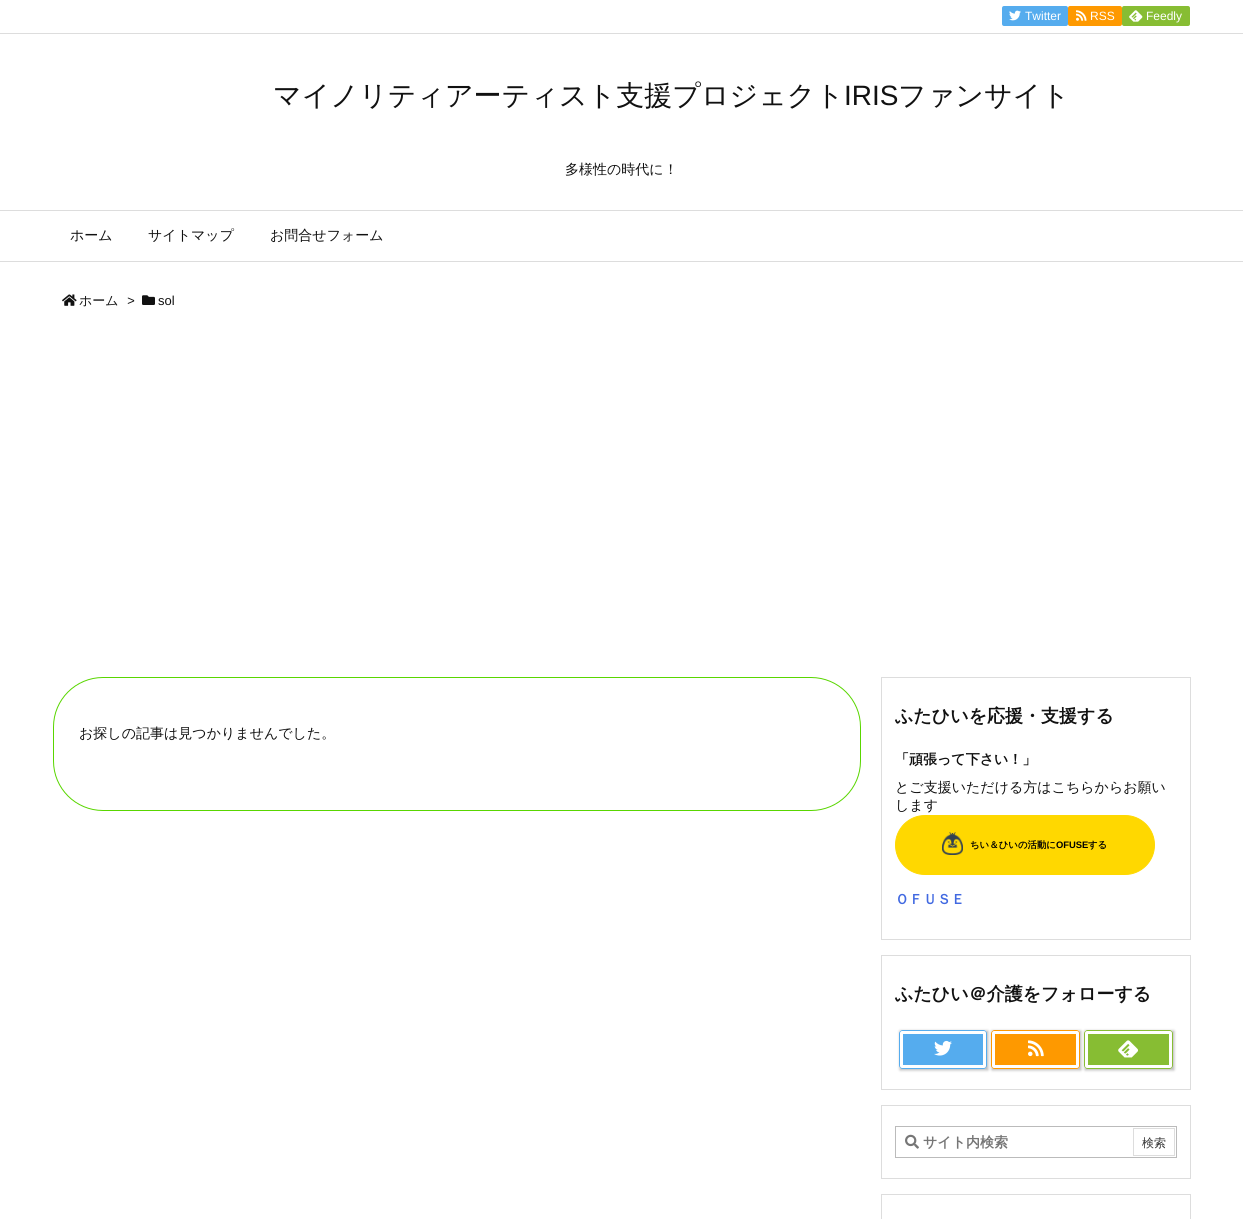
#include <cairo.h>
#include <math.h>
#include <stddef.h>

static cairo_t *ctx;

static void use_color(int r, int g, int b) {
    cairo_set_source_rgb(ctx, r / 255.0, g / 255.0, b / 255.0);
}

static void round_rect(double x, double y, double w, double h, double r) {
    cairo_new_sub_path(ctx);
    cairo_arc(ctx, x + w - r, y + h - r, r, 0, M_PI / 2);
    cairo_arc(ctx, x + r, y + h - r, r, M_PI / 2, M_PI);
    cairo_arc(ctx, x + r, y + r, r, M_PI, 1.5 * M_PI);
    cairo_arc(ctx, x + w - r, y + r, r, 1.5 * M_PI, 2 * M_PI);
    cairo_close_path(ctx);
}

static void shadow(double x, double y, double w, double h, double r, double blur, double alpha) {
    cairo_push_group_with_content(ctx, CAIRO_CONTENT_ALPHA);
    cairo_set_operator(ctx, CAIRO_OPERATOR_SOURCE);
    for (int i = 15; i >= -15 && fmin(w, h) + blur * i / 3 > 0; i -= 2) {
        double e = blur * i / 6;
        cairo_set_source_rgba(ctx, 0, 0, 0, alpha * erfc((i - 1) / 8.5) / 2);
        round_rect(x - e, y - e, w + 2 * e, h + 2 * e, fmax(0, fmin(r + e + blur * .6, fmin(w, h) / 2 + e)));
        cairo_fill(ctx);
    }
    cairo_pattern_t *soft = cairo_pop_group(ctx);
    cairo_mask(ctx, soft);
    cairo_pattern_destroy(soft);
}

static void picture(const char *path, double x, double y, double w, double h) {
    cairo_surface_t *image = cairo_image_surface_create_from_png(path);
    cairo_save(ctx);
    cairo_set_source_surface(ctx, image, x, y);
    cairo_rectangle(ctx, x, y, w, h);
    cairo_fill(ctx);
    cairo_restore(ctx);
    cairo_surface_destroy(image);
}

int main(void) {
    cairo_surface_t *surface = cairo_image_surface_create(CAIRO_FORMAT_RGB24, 1243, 1219);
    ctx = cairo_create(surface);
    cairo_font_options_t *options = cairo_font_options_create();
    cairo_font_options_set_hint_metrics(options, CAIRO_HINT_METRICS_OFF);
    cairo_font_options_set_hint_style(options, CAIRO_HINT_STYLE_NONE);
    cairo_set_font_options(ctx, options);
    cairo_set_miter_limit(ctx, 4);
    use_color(255, 255, 255);
    cairo_paint(ctx);
    use_color(221, 221, 221);
    cairo_rectangle(ctx, 0, 33, 1243, 1);
    cairo_fill(ctx);
    use_color(85, 172, 238);
    round_rect(1002, 6, 66, 20, 2);
    cairo_fill(ctx);
    picture("img1.png", 1009, 10, 12, 11);
    cairo_select_font_face(ctx, "Liberation Sans", CAIRO_FONT_SLANT_NORMAL, CAIRO_FONT_WEIGHT_NORMAL);
    cairo_set_font_size(ctx, 12);
    use_color(255, 255, 255);
    cairo_move_to(ctx, 1025, 20);
    cairo_show_text(ctx, "Twitter");
    use_color(254, 153, 0);
    round_rect(1068, 6, 54, 20, 2);
    cairo_fill(ctx);
    picture("img2.png", 1076, 10, 11, 11);
    use_color(255, 255, 255);
    cairo_move_to(ctx, 1090, 20);
    cairo_show_text(ctx, "RSS");
    use_color(135, 189, 51);
    round_rect(1122, 6, 68, 20, 2);
    cairo_fill(ctx);
    picture("img3.png", 1129, 10, 14, 12);
    use_color(255, 255, 255);
    cairo_move_to(ctx, 1146, 20);
    cairo_show_text(ctx, "Feedly");
    use_color(221, 221, 221);
    cairo_rectangle(ctx, 0, 210, 1243, 1);
    cairo_fill(ctx);
    cairo_rectangle(ctx, 0, 261, 1243, 1);
    cairo_fill(ctx);
    cairo_select_font_face(ctx, "WenQuanYi Zen Hei Medium", CAIRO_FONT_SLANT_NORMAL, CAIRO_FONT_WEIGHT_NORMAL);
    cairo_set_font_size(ctx, 14);
    use_color(17, 17, 17);
    cairo_move_to(ctx, 70, 240);
    cairo_show_text(ctx, "ホーム");
    cairo_move_to(ctx, 148, 240);
    cairo_show_text(ctx, "サイトマップ");
    cairo_move_to(ctx, 270, 240);
    cairo_show_text(ctx, "お問合せフォーム");
    cairo_set_font_size(ctx, 28);
    cairo_move_to(ctx, 273, 105);
    cairo_show_text(ctx, "マイノリティアーティスト支援プロジェクト");
    cairo_select_font_face(ctx, "Liberation Sans", CAIRO_FONT_SLANT_NORMAL, CAIRO_FONT_WEIGHT_NORMAL);
    cairo_move_to(ctx, 844, 105);
    cairo_show_text(ctx, "IRIS");
    cairo_select_font_face(ctx, "WenQuanYi Zen Hei Medium", CAIRO_FONT_SLANT_NORMAL, CAIRO_FONT_WEIGHT_NORMAL);
    cairo_move_to(ctx, 898, 105);
    cairo_show_text(ctx, "ファンサイト");
    cairo_set_font_size(ctx, 14);
    cairo_move_to(ctx, 565, 174);
    cairo_show_text(ctx, "多様性の時代に！");
    picture("img4.png", 62, 294, 15, 12);
    cairo_set_font_size(ctx, 13);
    cairo_move_to(ctx, 79, 305);
    cairo_show_text(ctx, "ホーム");
    cairo_select_font_face(ctx, "Liberation Sans", CAIRO_FONT_SLANT_ITALIC, CAIRO_FONT_WEIGHT_NORMAL);
    cairo_move_to(ctx, 127, 305);
    cairo_show_text(ctx, ">");
    picture("img5.png", 142, 295, 13, 10);
    cairo_select_font_face(ctx, "Liberation Sans", CAIRO_FONT_SLANT_NORMAL, CAIRO_FONT_WEIGHT_NORMAL);
    cairo_move_to(ctx, 158, 305);
    cairo_show_text(ctx, "sol");
    round_rect(53.5, 677.5, 807, 133, 49.5);
    use_color(89, 214, 0);
    cairo_set_line_width(ctx, 1);
    cairo_stroke(ctx);
    cairo_select_font_face(ctx, "WenQuanYi Zen Hei Medium", CAIRO_FONT_SLANT_NORMAL, CAIRO_FONT_WEIGHT_NORMAL);
    cairo_set_font_size(ctx, 14);
    use_color(17, 17, 17);
    cairo_move_to(ctx, 79, 738);
    cairo_show_text(ctx, "お探しの記事は見つかりませんでした。");
    cairo_rectangle(ctx, 881.5, 677.5, 309, 262);
    use_color(221, 221, 221);
    cairo_stroke(ctx);
    cairo_select_font_face(ctx, "WenQuanYi Zen Hei", CAIRO_FONT_SLANT_NORMAL, CAIRO_FONT_WEIGHT_BOLD);
    cairo_set_font_size(ctx, 18);
    use_color(17, 17, 17);
    cairo_move_to(ctx, 895, 722);
    cairo_show_text(ctx, "ふたひいを応援・支援する");
    cairo_set_font_size(ctx, 14);
    cairo_move_to(ctx, 895, 764);
    cairo_show_text(ctx, "「頑張って下さい！」");
    cairo_select_font_face(ctx, "WenQuanYi Zen Hei Medium", CAIRO_FONT_SLANT_NORMAL, CAIRO_FONT_WEIGHT_NORMAL);
    cairo_move_to(ctx, 895, 792);
    cairo_show_text(ctx, "とご支援いただける方はこちらからお願い");
    cairo_move_to(ctx, 895, 810);
    cairo_show_text(ctx, "します");
    use_color(255, 216, 0);
    round_rect(895.5, 815.5, 259, 59, 29.5);
    cairo_fill_preserve(ctx);
    cairo_stroke(ctx);
    picture("img6.png", 942, 832, 21, 23);
    cairo_select_font_face(ctx, "WenQuanYi Zen Hei", CAIRO_FONT_SLANT_NORMAL, CAIRO_FONT_WEIGHT_BOLD);
    cairo_set_font_size(ctx, 9.4);
    use_color(0, 0, 0);
    cairo_move_to(ctx, 970, 848);
    cairo_show_text(ctx, "ちい＆ひいの活動に");
    cairo_select_font_face(ctx, "Liberation Sans", CAIRO_FONT_SLANT_NORMAL, CAIRO_FONT_WEIGHT_BOLD);
    cairo_move_to(ctx, 1056, 848);
    cairo_show_text(ctx, "OFUSE");
    cairo_select_font_face(ctx, "WenQuanYi Zen Hei", CAIRO_FONT_SLANT_NORMAL, CAIRO_FONT_WEIGHT_BOLD);
    cairo_move_to(ctx, 1088, 848);
    cairo_show_text(ctx, "する");
    cairo_set_font_size(ctx, 14);
    use_color(65, 105, 225);
    cairo_move_to(ctx, 895, 904);
    cairo_show_text(ctx, "ＯＦＵＳＥ");
    cairo_rectangle(ctx, 881.5, 955.5, 309, 134);
    use_color(221, 221, 221);
    cairo_stroke(ctx);
    cairo_set_font_size(ctx, 18);
    use_color(17, 17, 17);
    cairo_move_to(ctx, 895, 1000);
    cairo_show_text(ctx, "ふたひい＠介護をフォローする");
    use_color(0, 0, 0);
    shadow(900, 1031, 88, 39, 0, 1.5, 0.3);
    use_color(85, 172, 238);
    round_rect(899, 1030, 88, 39, 4);
    cairo_fill(ctx);
    round_rect(901.5, 1032.5, 83, 34, 0.5);
    use_color(255, 255, 255);
    cairo_set_line_width(ctx, 3);
    cairo_stroke(ctx);
    picture("img7.png", 934, 1040, 18, 16);
    use_color(0, 0, 0);
    shadow(992, 1031, 89, 39, 0, 1.5, 0.3);
    use_color(254, 153, 0);
    round_rect(991, 1030, 89, 39, 4);
    cairo_fill(ctx);
    round_rect(993.5, 1032.5, 84, 34, 0.5);
    use_color(255, 255, 255);
    cairo_stroke(ctx);
    picture("img8.png", 1028, 1040, 16, 17);
    use_color(0, 0, 0);
    shadow(1085, 1031, 89, 39, 0, 1.5, 0.3);
    use_color(135, 189, 51);
    round_rect(1084, 1030, 89, 39, 4);
    cairo_fill(ctx);
    round_rect(1086.5, 1032.5, 84, 34, 0.5);
    use_color(255, 255, 255);
    cairo_stroke(ctx);
    picture("img9.png", 1118, 1040, 20, 18);
    cairo_rectangle(ctx, 881.5, 1105.5, 309, 73);
    use_color(221, 221, 221);
    cairo_set_line_width(ctx, 1);
    cairo_stroke(ctx);
    cairo_rectangle(ctx, 895.5, 1126.5, 281, 31);
    use_color(187, 187, 187);
    cairo_stroke(ctx);
    picture("img10.png", 905, 1134, 14, 15);
    cairo_set_font_size(ctx, 14);
    use_color(118, 118, 118);
    cairo_move_to(ctx, 923, 1147);
    cairo_show_text(ctx, "サイト内検索");
    cairo_rectangle(ctx, 1133.5, 1128.5, 41, 27);
    use_color(221, 221, 221);
    cairo_stroke(ctx);
    cairo_select_font_face(ctx, "WenQuanYi Zen Hei Medium", CAIRO_FONT_SLANT_NORMAL, CAIRO_FONT_WEIGHT_NORMAL);
    cairo_set_font_size(ctx, 12);
    use_color(51, 51, 51);
    cairo_move_to(ctx, 1142, 1147);
    cairo_show_text(ctx, "検索");
    cairo_rectangle(ctx, 881.5, 1194.5, 309, 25);
    use_color(221, 221, 221);
    cairo_stroke(ctx);
    cairo_surface_write_to_png(surface, "result.png");
    cairo_font_options_destroy(options);
    cairo_destroy(ctx);
    cairo_surface_destroy(surface);
    return 0;
}
